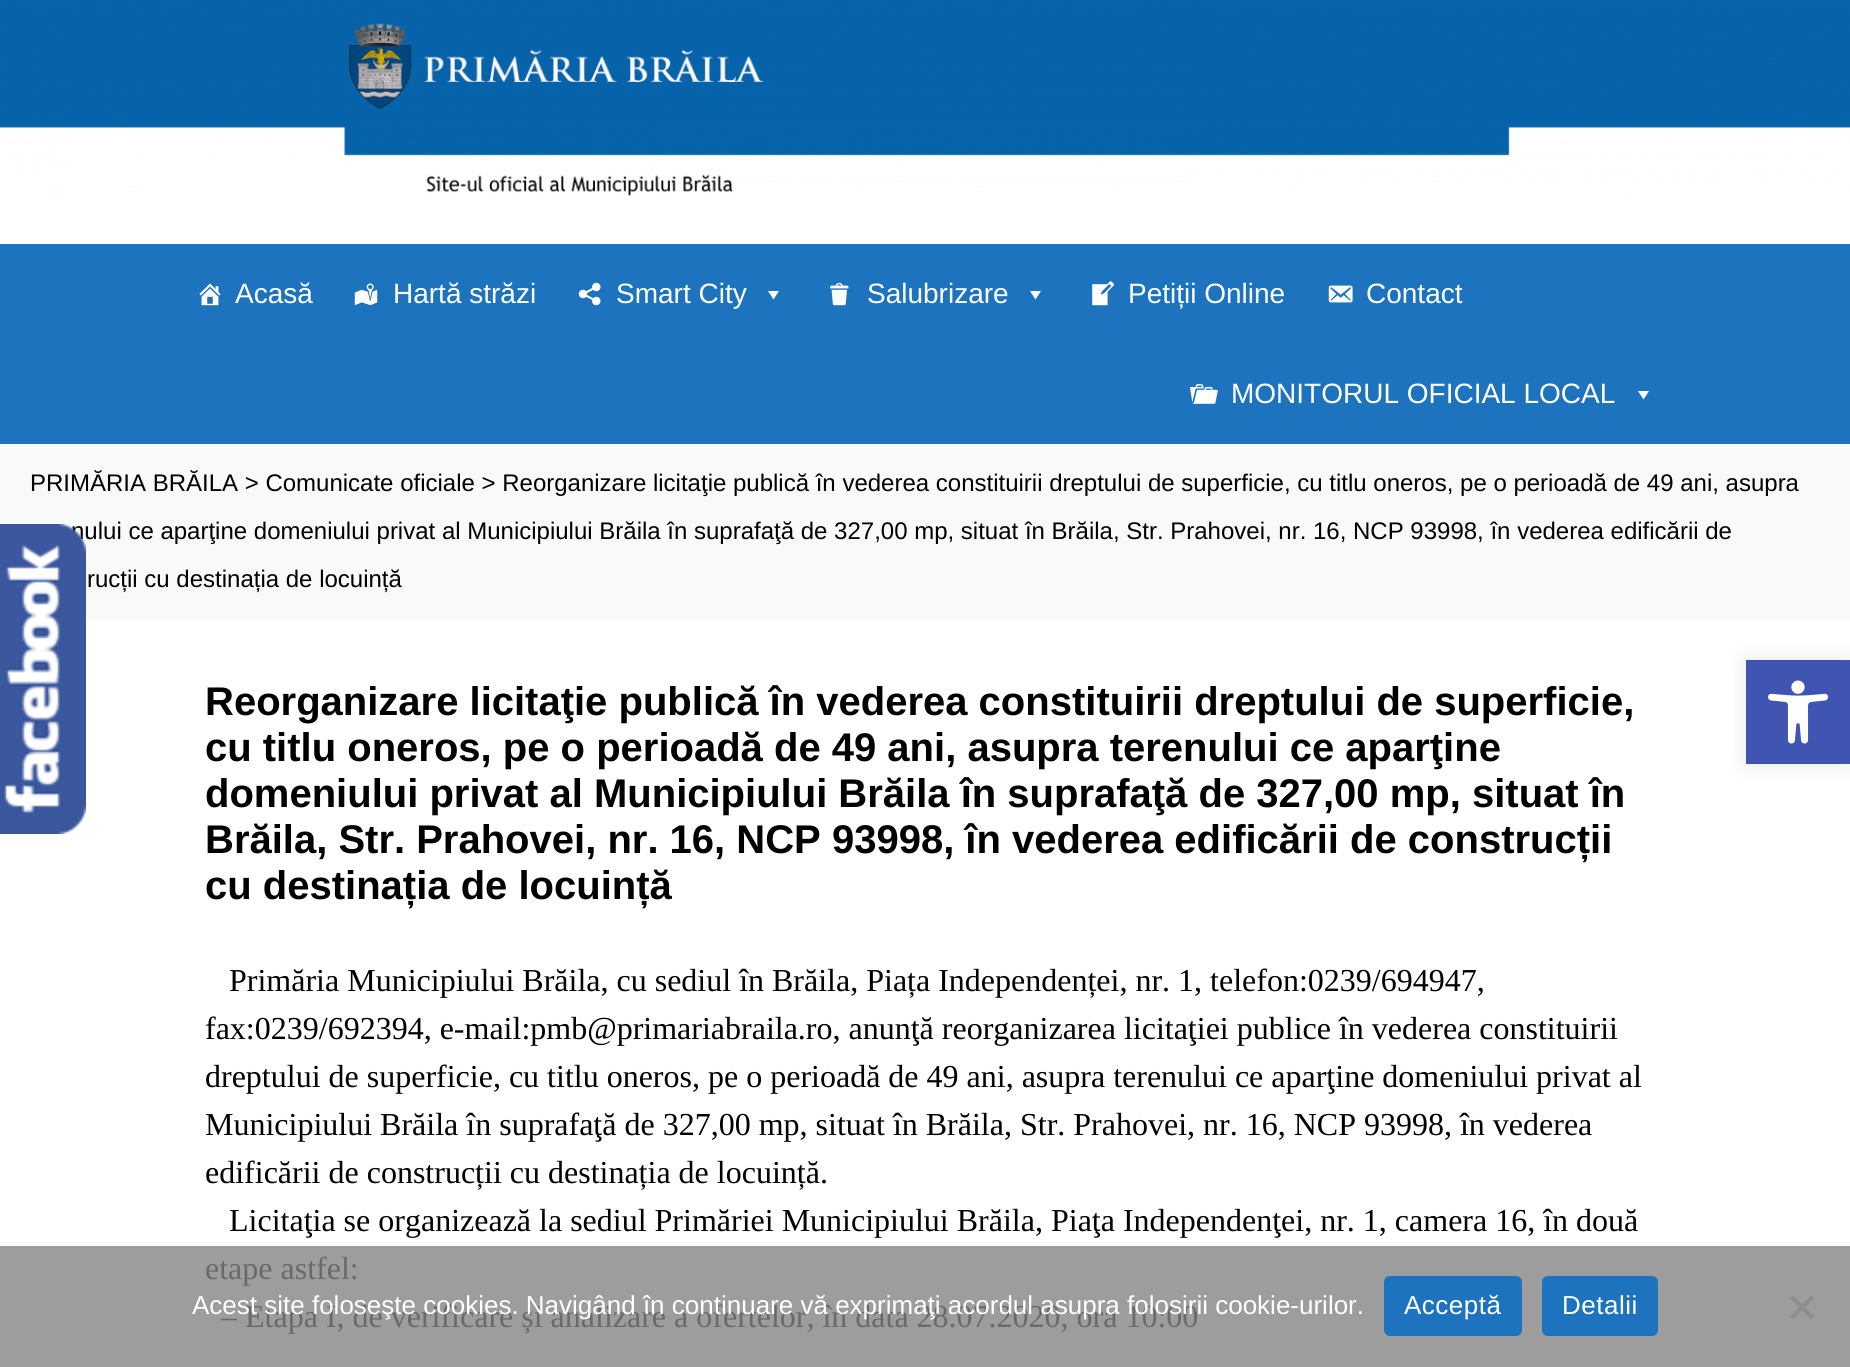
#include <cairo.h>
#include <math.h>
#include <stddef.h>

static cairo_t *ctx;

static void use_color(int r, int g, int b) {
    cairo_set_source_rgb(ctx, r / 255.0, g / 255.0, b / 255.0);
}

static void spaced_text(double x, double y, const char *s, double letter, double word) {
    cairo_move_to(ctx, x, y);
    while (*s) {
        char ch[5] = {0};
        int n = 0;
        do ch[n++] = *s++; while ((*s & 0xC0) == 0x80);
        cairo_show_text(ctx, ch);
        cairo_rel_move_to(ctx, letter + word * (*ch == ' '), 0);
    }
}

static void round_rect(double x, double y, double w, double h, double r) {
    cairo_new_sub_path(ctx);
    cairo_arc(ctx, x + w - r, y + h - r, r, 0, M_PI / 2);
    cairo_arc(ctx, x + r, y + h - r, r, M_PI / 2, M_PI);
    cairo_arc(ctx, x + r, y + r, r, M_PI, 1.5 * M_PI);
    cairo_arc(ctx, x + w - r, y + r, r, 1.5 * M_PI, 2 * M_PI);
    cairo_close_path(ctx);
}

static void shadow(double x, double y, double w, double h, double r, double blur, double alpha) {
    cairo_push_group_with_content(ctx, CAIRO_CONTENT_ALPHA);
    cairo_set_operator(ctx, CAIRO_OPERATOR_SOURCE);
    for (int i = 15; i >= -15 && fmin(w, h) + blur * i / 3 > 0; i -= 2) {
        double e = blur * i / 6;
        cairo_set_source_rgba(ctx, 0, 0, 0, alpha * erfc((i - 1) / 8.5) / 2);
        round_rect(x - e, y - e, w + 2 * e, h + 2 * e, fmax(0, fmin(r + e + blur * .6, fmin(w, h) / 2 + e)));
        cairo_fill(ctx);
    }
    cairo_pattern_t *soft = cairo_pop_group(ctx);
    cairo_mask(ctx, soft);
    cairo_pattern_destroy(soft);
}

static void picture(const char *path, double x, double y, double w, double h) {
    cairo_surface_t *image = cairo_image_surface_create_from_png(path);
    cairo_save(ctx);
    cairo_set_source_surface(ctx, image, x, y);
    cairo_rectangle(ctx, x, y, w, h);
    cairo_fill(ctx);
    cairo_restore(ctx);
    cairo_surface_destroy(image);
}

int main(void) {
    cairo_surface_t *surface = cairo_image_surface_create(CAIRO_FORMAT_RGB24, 1850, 1367);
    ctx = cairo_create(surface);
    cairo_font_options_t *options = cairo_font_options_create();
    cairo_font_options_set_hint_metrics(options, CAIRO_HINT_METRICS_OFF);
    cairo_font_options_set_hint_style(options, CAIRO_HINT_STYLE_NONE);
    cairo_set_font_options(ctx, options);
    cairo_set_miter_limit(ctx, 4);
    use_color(255, 255, 255);
    cairo_paint(ctx);
    use_color(157, 157, 157);
    cairo_rectangle(ctx, 0, 1246, 1850, 121);
    cairo_fill(ctx);
    picture("img1.png", 0, 0, 1850, 196);
    use_color(30, 115, 190);
    cairo_rectangle(ctx, 0, 244, 1850, 200);
    cairo_fill(ctx);
    picture("img2.png", 199, 283, 22, 23);
    cairo_select_font_face(ctx, "Liberation Sans", CAIRO_FONT_SLANT_NORMAL, CAIRO_FONT_WEIGHT_NORMAL);
    cairo_set_font_size(ctx, 28);
    use_color(255, 255, 255);
    cairo_move_to(ctx, 235, 303);
    cairo_show_text(ctx, "Acasă");
    picture("img3.png", 354, 283, 24, 23);
    cairo_move_to(ctx, 393, 303);
    cairo_show_text(ctx, "Hartă străzi");
    picture("img4.png", 578, 282, 23, 24);
    cairo_move_to(ctx, 616, 303);
    cairo_show_text(ctx, "Smart City");
    cairo_new_path(ctx);
    cairo_move_to(ctx, 779, 291);
    cairo_line_to(ctx, 773.5, 299.5);
    cairo_line_to(ctx, 768, 291);
    cairo_close_path(ctx);
    cairo_fill(ctx);
    picture("img5.png", 830, 282, 19, 24);
    cairo_move_to(ctx, 867, 303);
    cairo_show_text(ctx, "Salubrizare");
    cairo_new_path(ctx);
    cairo_move_to(ctx, 1041, 291);
    cairo_line_to(ctx, 1035.5, 299.5);
    cairo_line_to(ctx, 1030, 291);
    cairo_close_path(ctx);
    cairo_fill(ctx);
    picture("img6.png", 1092, 281, 22, 25);
    cairo_move_to(ctx, 1128, 303);
    cairo_show_text(ctx, "Petiții Online");
    picture("img7.png", 1328, 285, 25, 18);
    cairo_move_to(ctx, 1366, 303);
    cairo_show_text(ctx, "Contact");
    picture("img8.png", 1190, 384, 28, 20);
    cairo_move_to(ctx, 1231, 403);
    cairo_show_text(ctx, "MONITORUL OFICIAL LOCAL");
    cairo_new_path(ctx);
    cairo_move_to(ctx, 1649, 391);
    cairo_line_to(ctx, 1643.5, 399.5);
    cairo_line_to(ctx, 1638, 391);
    cairo_close_path(ctx);
    cairo_fill(ctx);
    use_color(249, 249, 249);
    cairo_rectangle(ctx, 0, 444, 1850, 176);
    cairo_fill(ctx);
    cairo_set_font_size(ctx, 24);
    use_color(0, 0, 0);
    cairo_move_to(ctx, 30, 491);
    cairo_show_text(ctx, "PRIMĂRIA BRĂILA > Comunicate oficiale > Reorganizare licitaţie publică în vederea constituirii dreptului de superficie, cu titlu oneros, pe o perioadă de 49 ani, asupra");
    cairo_move_to(ctx, 71, 539);
    cairo_show_text(ctx, "nului ce aparţine domeniului privat al Municipiului Brăila în suprafaţă de 327,00 mp, situat în Brăila, Str. Prahovei, nr. 16, NCP 93998, în vederea edificării de");
    cairo_move_to(ctx, 87, 587);
    cairo_show_text(ctx, "rucții cu destinația de locuință");
    cairo_select_font_face(ctx, "Liberation Sans", CAIRO_FONT_SLANT_NORMAL, CAIRO_FONT_WEIGHT_BOLD);
    cairo_set_font_size(ctx, 40);
    cairo_move_to(ctx, 205, 715);
    cairo_show_text(ctx, "Reorganizare licitaţie publică în vederea constituirii dreptului de superficie,");
    cairo_move_to(ctx, 205, 761);
    cairo_show_text(ctx, "cu titlu oneros, pe o perioadă de 49 ani, asupra terenului ce aparţine");
    cairo_move_to(ctx, 205, 807);
    cairo_show_text(ctx, "domeniului privat al Municipiului Brăila în suprafaţă de 327,00 mp, situat în");
    cairo_move_to(ctx, 205, 853);
    cairo_show_text(ctx, "Brăila, Str. Prahovei, nr. 16, NCP 93998, în vederea edificării de construcții");
    cairo_move_to(ctx, 205, 899);
    cairo_show_text(ctx, "cu destinația de locuință");
    cairo_select_font_face(ctx, "Liberation Serif", CAIRO_FONT_SLANT_NORMAL, CAIRO_FONT_WEIGHT_NORMAL);
    cairo_set_font_size(ctx, 32);
    cairo_move_to(ctx, 229, 991);
    cairo_show_text(ctx, "Primăria Municipiului Brăila, cu sediul în Brăila, Piața Independenței, nr. 1, telefon:0239/694947,");
    cairo_move_to(ctx, 205, 1039);
    cairo_show_text(ctx, "fax:0239/692394, e-mail:pmb@primariabraila.ro, anunţă reorganizarea licitaţiei publice în vederea constituirii");
    cairo_move_to(ctx, 205, 1087);
    cairo_show_text(ctx, "dreptului de superficie, cu titlu oneros, pe o perioadă de 49 ani, asupra terenului ce aparţine domeniului privat al");
    cairo_move_to(ctx, 205, 1135);
    cairo_show_text(ctx, "Municipiului Brăila în suprafaţă de 327,00 mp, situat în Brăila, Str. Prahovei, nr. 16, NCP 93998, în vederea");
    cairo_move_to(ctx, 205, 1183);
    cairo_show_text(ctx, "edificării de construcții cu destinația de locuință.");
    cairo_move_to(ctx, 229, 1231);
    cairo_show_text(ctx, "Licitaţia se organizează la sediul Primăriei Municipiului Brăila, Piaţa Independenţei, nr. 1, camera 16, în două");
    use_color(106, 106, 106);
    cairo_move_to(ctx, 205, 1279);
    cairo_show_text(ctx, "etape astfel:");
    cairo_move_to(ctx, 221, 1327);
    cairo_show_text(ctx, "– Etapa I, de verificare și analizare a ofertelor, în data 28.07.2020, ora 10:00");
    picture("img9.png", 0, 524, 86, 310);
    use_color(0, 0, 0);
    shadow(1746, 660, 104, 104, 0, 10, 0.1);
    use_color(64, 84, 178);
    cairo_rectangle(ctx, 1746, 660, 104, 104);
    cairo_fill(ctx);
    picture("img10.png", 1768, 680, 61, 64);
    cairo_select_font_face(ctx, "Liberation Sans", CAIRO_FONT_SLANT_NORMAL, CAIRO_FONT_WEIGHT_NORMAL);
    cairo_set_font_size(ctx, 26);
    use_color(255, 255, 255);
    cairo_move_to(ctx, 192, 1314);
    cairo_show_text(ctx, "Acest site foloseşte cookies. Navigând în continuare vă exprimaţi acordul asupra folosirii cookie-urilor.");
    use_color(30, 115, 190);
    round_rect(1384, 1276, 138, 60, 6);
    cairo_fill(ctx);
    use_color(255, 255, 255);
    spaced_text(1404, 1314, "Acceptă", 0.5, 0);
    use_color(30, 115, 190);
    round_rect(1542, 1276, 116, 60, 6);
    cairo_fill(ctx);
    use_color(255, 255, 255);
    spaced_text(1562, 1314, "Detalii", 0.5, 0);
    use_color(142, 142, 142);
    cairo_new_path(ctx);
    cairo_move_to(ctx, 1811, 1295.5);
    cairo_line_to(ctx, 1814, 1298.5);
    cairo_line_to(ctx, 1793, 1319.5);
    cairo_line_to(ctx, 1790, 1316.5);
    cairo_close_path(ctx);
    cairo_fill(ctx);
    cairo_new_path(ctx);
    cairo_move_to(ctx, 1790, 1298.5);
    cairo_line_to(ctx, 1793, 1295.5);
    cairo_line_to(ctx, 1814, 1316.5);
    cairo_line_to(ctx, 1811, 1319.5);
    cairo_close_path(ctx);
    cairo_fill(ctx);
    cairo_surface_write_to_png(surface, "result.png");
    cairo_font_options_destroy(options);
    cairo_destroy(ctx);
    cairo_surface_destroy(surface);
    return 0;
}
